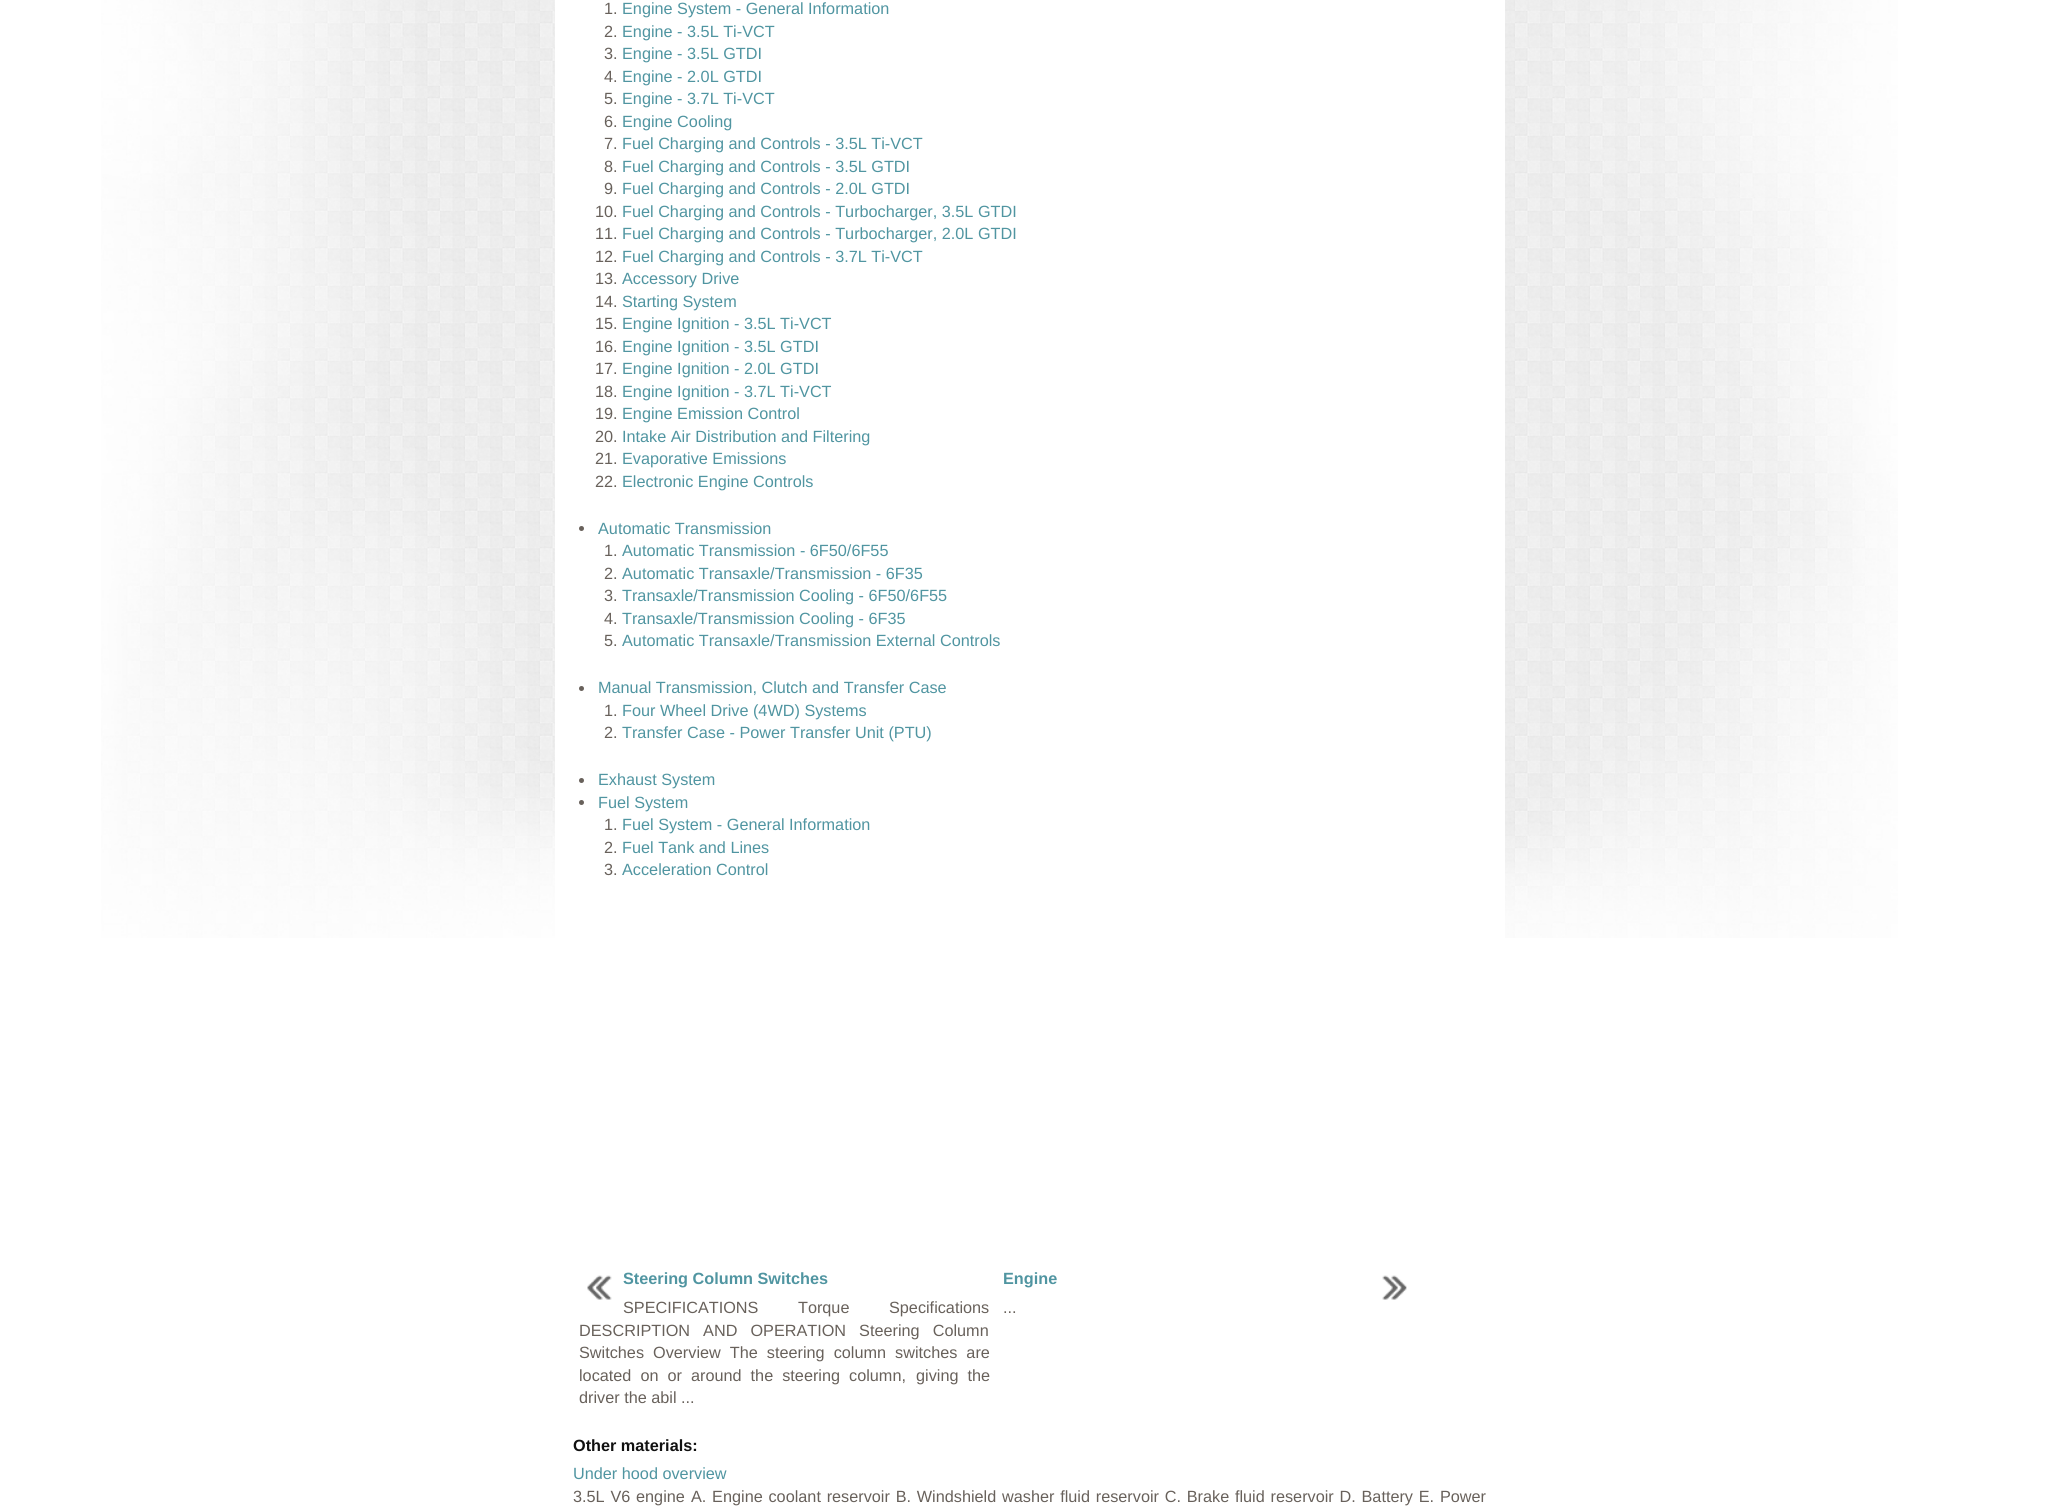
#include <cairo.h>
#include <math.h>
#include <stddef.h>

static cairo_t *ctx;

static void use_color(int r, int g, int b) {
    cairo_set_source_rgb(ctx, r / 255.0, g / 255.0, b / 255.0);
}

static void spaced_text(double x, double y, const char *s, double letter, double word) {
    cairo_move_to(ctx, x, y);
    while (*s) {
        char ch[5] = {0};
        int n = 0;
        do ch[n++] = *s++; while ((*s & 0xC0) == 0x80);
        cairo_show_text(ctx, ch);
        cairo_rel_move_to(ctx, letter + word * (*ch == ' '), 0);
    }
}

static void picture(const char *path, double x, double y, double w, double h) {
    cairo_surface_t *image = cairo_image_surface_create_from_png(path);
    cairo_save(ctx);
    cairo_set_source_surface(ctx, image, x, y);
    cairo_rectangle(ctx, x, y, w, h);
    cairo_fill(ctx);
    cairo_restore(ctx);
    cairo_surface_destroy(image);
}

int main(void) {
    cairo_surface_t *surface = cairo_image_surface_create(CAIRO_FORMAT_RGB24, 2058, 1510);
    ctx = cairo_create(surface);
    cairo_font_options_t *options = cairo_font_options_create();
    cairo_font_options_set_hint_metrics(options, CAIRO_HINT_METRICS_OFF);
    cairo_font_options_set_hint_style(options, CAIRO_HINT_STYLE_NONE);
    cairo_set_font_options(ctx, options);
    cairo_set_miter_limit(ctx, 4);
    use_color(255, 255, 255);
    cairo_paint(ctx);
    picture("img1.png", 101, 0, 1797, 938);
    use_color(255, 255, 255);
    cairo_rectangle(ctx, 555, 0, 950, 938);
    cairo_fill(ctx);
    cairo_select_font_face(ctx, "Liberation Sans", CAIRO_FONT_SLANT_NORMAL, CAIRO_FONT_WEIGHT_NORMAL);
    cairo_set_font_size(ctx, 16.25);
    use_color(104, 97, 91);
    cairo_move_to(ctx, 604, 14);
    cairo_show_text(ctx, "1.");
    use_color(80, 149, 161);
    cairo_move_to(ctx, 622, 14);
    cairo_show_text(ctx, "Engine System - General Information");
    use_color(104, 97, 91);
    cairo_move_to(ctx, 604, 37);
    cairo_show_text(ctx, "2.");
    use_color(80, 149, 161);
    cairo_move_to(ctx, 622, 37);
    cairo_show_text(ctx, "Engine - 3.5L Ti-VCT");
    use_color(104, 97, 91);
    cairo_move_to(ctx, 604, 59);
    cairo_show_text(ctx, "3.");
    use_color(80, 149, 161);
    cairo_move_to(ctx, 622, 59);
    cairo_show_text(ctx, "Engine - 3.5L GTDI");
    use_color(104, 97, 91);
    cairo_move_to(ctx, 604, 82);
    cairo_show_text(ctx, "4.");
    use_color(80, 149, 161);
    cairo_move_to(ctx, 622, 82);
    cairo_show_text(ctx, "Engine - 2.0L GTDI");
    use_color(104, 97, 91);
    cairo_move_to(ctx, 604, 104);
    cairo_show_text(ctx, "5.");
    use_color(80, 149, 161);
    cairo_move_to(ctx, 622, 104);
    cairo_show_text(ctx, "Engine - 3.7L Ti-VCT");
    use_color(104, 97, 91);
    cairo_move_to(ctx, 604, 127);
    cairo_show_text(ctx, "6.");
    use_color(80, 149, 161);
    cairo_move_to(ctx, 622, 127);
    cairo_show_text(ctx, "Engine Cooling");
    use_color(104, 97, 91);
    cairo_move_to(ctx, 604, 149);
    cairo_show_text(ctx, "7.");
    use_color(80, 149, 161);
    cairo_move_to(ctx, 622, 149);
    cairo_show_text(ctx, "Fuel Charging and Controls - 3.5L Ti-VCT");
    use_color(104, 97, 91);
    cairo_move_to(ctx, 604, 172);
    cairo_show_text(ctx, "8.");
    use_color(80, 149, 161);
    cairo_move_to(ctx, 622, 172);
    cairo_show_text(ctx, "Fuel Charging and Controls - 3.5L GTDI");
    use_color(104, 97, 91);
    cairo_move_to(ctx, 604, 194);
    cairo_show_text(ctx, "9.");
    use_color(80, 149, 161);
    cairo_move_to(ctx, 622, 194);
    cairo_show_text(ctx, "Fuel Charging and Controls - 2.0L GTDI");
    use_color(104, 97, 91);
    cairo_move_to(ctx, 595, 217);
    cairo_show_text(ctx, "10.");
    use_color(80, 149, 161);
    cairo_move_to(ctx, 622, 217);
    cairo_show_text(ctx, "Fuel Charging and Controls - Turbocharger, 3.5L GTDI");
    use_color(104, 97, 91);
    cairo_move_to(ctx, 595, 239);
    cairo_show_text(ctx, "11.");
    use_color(80, 149, 161);
    cairo_move_to(ctx, 622, 239);
    cairo_show_text(ctx, "Fuel Charging and Controls - Turbocharger, 2.0L GTDI");
    use_color(104, 97, 91);
    cairo_move_to(ctx, 595, 262);
    cairo_show_text(ctx, "12.");
    use_color(80, 149, 161);
    cairo_move_to(ctx, 622, 262);
    cairo_show_text(ctx, "Fuel Charging and Controls - 3.7L Ti-VCT");
    use_color(104, 97, 91);
    cairo_move_to(ctx, 595, 284);
    cairo_show_text(ctx, "13.");
    use_color(80, 149, 161);
    cairo_move_to(ctx, 622, 284);
    cairo_show_text(ctx, "Accessory Drive");
    use_color(104, 97, 91);
    cairo_move_to(ctx, 595, 307);
    cairo_show_text(ctx, "14.");
    use_color(80, 149, 161);
    cairo_move_to(ctx, 622, 307);
    cairo_show_text(ctx, "Starting System");
    use_color(104, 97, 91);
    cairo_move_to(ctx, 595, 329);
    cairo_show_text(ctx, "15.");
    use_color(80, 149, 161);
    cairo_move_to(ctx, 622, 329);
    cairo_show_text(ctx, "Engine Ignition - 3.5L Ti-VCT");
    use_color(104, 97, 91);
    cairo_move_to(ctx, 595, 352);
    cairo_show_text(ctx, "16.");
    use_color(80, 149, 161);
    cairo_move_to(ctx, 622, 352);
    cairo_show_text(ctx, "Engine Ignition - 3.5L GTDI");
    use_color(104, 97, 91);
    cairo_move_to(ctx, 595, 374);
    cairo_show_text(ctx, "17.");
    use_color(80, 149, 161);
    cairo_move_to(ctx, 622, 374);
    cairo_show_text(ctx, "Engine Ignition - 2.0L GTDI");
    use_color(104, 97, 91);
    cairo_move_to(ctx, 595, 397);
    cairo_show_text(ctx, "18.");
    use_color(80, 149, 161);
    cairo_move_to(ctx, 622, 397);
    cairo_show_text(ctx, "Engine Ignition - 3.7L Ti-VCT");
    use_color(104, 97, 91);
    cairo_move_to(ctx, 595, 419);
    cairo_show_text(ctx, "19.");
    use_color(80, 149, 161);
    cairo_move_to(ctx, 622, 419);
    cairo_show_text(ctx, "Engine Emission Control");
    use_color(104, 97, 91);
    cairo_move_to(ctx, 595, 442);
    cairo_show_text(ctx, "20.");
    use_color(80, 149, 161);
    cairo_move_to(ctx, 622, 442);
    cairo_show_text(ctx, "Intake Air Distribution and Filtering");
    use_color(104, 97, 91);
    cairo_move_to(ctx, 595, 464);
    cairo_show_text(ctx, "21.");
    use_color(80, 149, 161);
    cairo_move_to(ctx, 622, 464);
    cairo_show_text(ctx, "Evaporative Emissions");
    use_color(104, 97, 91);
    cairo_move_to(ctx, 595, 487);
    cairo_show_text(ctx, "22.");
    use_color(80, 149, 161);
    cairo_move_to(ctx, 622, 487);
    cairo_show_text(ctx, "Electronic Engine Controls");
    use_color(104, 97, 91);
    cairo_new_path(ctx);
    cairo_arc(ctx, 581.5, 528.5, 2.5, 0, 2 * M_PI);
    cairo_fill(ctx);
    use_color(80, 149, 161);
    cairo_move_to(ctx, 598, 534);
    cairo_show_text(ctx, "Automatic Transmission");
    use_color(104, 97, 91);
    cairo_move_to(ctx, 604, 556);
    cairo_show_text(ctx, "1.");
    use_color(80, 149, 161);
    cairo_move_to(ctx, 622, 556);
    cairo_show_text(ctx, "Automatic Transmission - 6F50/6F55");
    use_color(104, 97, 91);
    cairo_move_to(ctx, 604, 579);
    cairo_show_text(ctx, "2.");
    use_color(80, 149, 161);
    cairo_move_to(ctx, 622, 579);
    cairo_show_text(ctx, "Automatic Transaxle/Transmission - 6F35");
    use_color(104, 97, 91);
    cairo_move_to(ctx, 604, 601);
    cairo_show_text(ctx, "3.");
    use_color(80, 149, 161);
    cairo_move_to(ctx, 622, 601);
    cairo_show_text(ctx, "Transaxle/Transmission Cooling - 6F50/6F55");
    use_color(104, 97, 91);
    cairo_move_to(ctx, 604, 624);
    cairo_show_text(ctx, "4.");
    use_color(80, 149, 161);
    cairo_move_to(ctx, 622, 624);
    cairo_show_text(ctx, "Transaxle/Transmission Cooling - 6F35");
    use_color(104, 97, 91);
    cairo_move_to(ctx, 604, 646);
    cairo_show_text(ctx, "5.");
    use_color(80, 149, 161);
    cairo_move_to(ctx, 622, 646);
    cairo_show_text(ctx, "Automatic Transaxle/Transmission External Controls");
    use_color(104, 97, 91);
    cairo_new_path(ctx);
    cairo_arc(ctx, 581.5, 688.5, 2.5, 0, 2 * M_PI);
    cairo_fill(ctx);
    use_color(80, 149, 161);
    cairo_move_to(ctx, 598, 693);
    cairo_show_text(ctx, "Manual Transmission, Clutch and Transfer Case");
    use_color(104, 97, 91);
    cairo_move_to(ctx, 604, 716);
    cairo_show_text(ctx, "1.");
    use_color(80, 149, 161);
    cairo_move_to(ctx, 622, 716);
    cairo_show_text(ctx, "Four Wheel Drive (4WD) Systems");
    use_color(104, 97, 91);
    cairo_move_to(ctx, 604, 738);
    cairo_show_text(ctx, "2.");
    use_color(80, 149, 161);
    cairo_move_to(ctx, 622, 738);
    cairo_show_text(ctx, "Transfer Case - Power Transfer Unit (PTU)");
    use_color(104, 97, 91);
    cairo_new_path(ctx);
    cairo_arc(ctx, 581.5, 780.5, 2.5, 0, 2 * M_PI);
    cairo_fill(ctx);
    use_color(80, 149, 161);
    cairo_move_to(ctx, 598, 785);
    cairo_show_text(ctx, "Exhaust System");
    use_color(104, 97, 91);
    cairo_new_path(ctx);
    cairo_arc(ctx, 581.5, 802.5, 2.5, 0, 2 * M_PI);
    cairo_fill(ctx);
    use_color(80, 149, 161);
    cairo_move_to(ctx, 598, 808);
    cairo_show_text(ctx, "Fuel System");
    use_color(104, 97, 91);
    cairo_move_to(ctx, 604, 830);
    cairo_show_text(ctx, "1.");
    use_color(80, 149, 161);
    cairo_move_to(ctx, 622, 830);
    cairo_show_text(ctx, "Fuel System - General Information");
    use_color(104, 97, 91);
    cairo_move_to(ctx, 604, 853);
    cairo_show_text(ctx, "2.");
    use_color(80, 149, 161);
    cairo_move_to(ctx, 622, 853);
    cairo_show_text(ctx, "Fuel Tank and Lines");
    use_color(104, 97, 91);
    cairo_move_to(ctx, 604, 875);
    cairo_show_text(ctx, "3.");
    use_color(80, 149, 161);
    cairo_move_to(ctx, 622, 875);
    cairo_show_text(ctx, "Acceleration Control");
    picture("img2.png", 587, 1275, 25, 25);
    cairo_select_font_face(ctx, "Liberation Sans", CAIRO_FONT_SLANT_NORMAL, CAIRO_FONT_WEIGHT_BOLD);
    cairo_move_to(ctx, 623, 1284);
    cairo_show_text(ctx, "Steering Column Switches");
    cairo_select_font_face(ctx, "Liberation Sans", CAIRO_FONT_SLANT_NORMAL, CAIRO_FONT_WEIGHT_NORMAL);
    use_color(104, 97, 91);
    spaced_text(623, 1313, "SPECIFICATIONS Torque Specifications", 0, 35);
    spaced_text(579, 1336, "DESCRIPTION AND OPERATION Steering Column", 0, 8.5);
    spaced_text(579, 1358, "Switches Overview The steering column switches are", 0, 4.5);
    spaced_text(579, 1381, "located on or around the steering column,", 0, 4.5);
    spaced_text(916, 1381, "giving the", 0, 4.5);
    cairo_move_to(ctx, 579, 1403);
    cairo_show_text(ctx, "driver the abil ...");
    cairo_select_font_face(ctx, "Liberation Sans", CAIRO_FONT_SLANT_NORMAL, CAIRO_FONT_WEIGHT_BOLD);
    use_color(80, 149, 161);
    cairo_move_to(ctx, 1003, 1284);
    cairo_show_text(ctx, "Engine");
    picture("img3.png", 1382, 1275, 25, 25);
    cairo_select_font_face(ctx, "Liberation Sans", CAIRO_FONT_SLANT_NORMAL, CAIRO_FONT_WEIGHT_NORMAL);
    use_color(104, 97, 91);
    cairo_move_to(ctx, 1003, 1313);
    cairo_show_text(ctx, "...");
    cairo_select_font_face(ctx, "Liberation Sans", CAIRO_FONT_SLANT_NORMAL, CAIRO_FONT_WEIGHT_BOLD);
    use_color(17, 17, 17);
    cairo_move_to(ctx, 573, 1451);
    cairo_show_text(ctx, "Other materials:");
    cairo_select_font_face(ctx, "Liberation Sans", CAIRO_FONT_SLANT_NORMAL, CAIRO_FONT_WEIGHT_NORMAL);
    use_color(80, 149, 161);
    cairo_move_to(ctx, 573, 1479);
    cairo_show_text(ctx, "Under hood overview");
    use_color(104, 97, 91);
    spaced_text(573, 1502, "3.5L V6 engine", 0, 1.25);
    spaced_text(691, 1502, "A. Engine coolant reservoir B. Windshield washer fluid reservoir C. Brake fluid reservoir D. Battery E. Power", 0, 1.25);
    cairo_surface_write_to_png(surface, "result.png");
    cairo_font_options_destroy(options);
    cairo_destroy(ctx);
    cairo_surface_destroy(surface);
    return 0;
}
